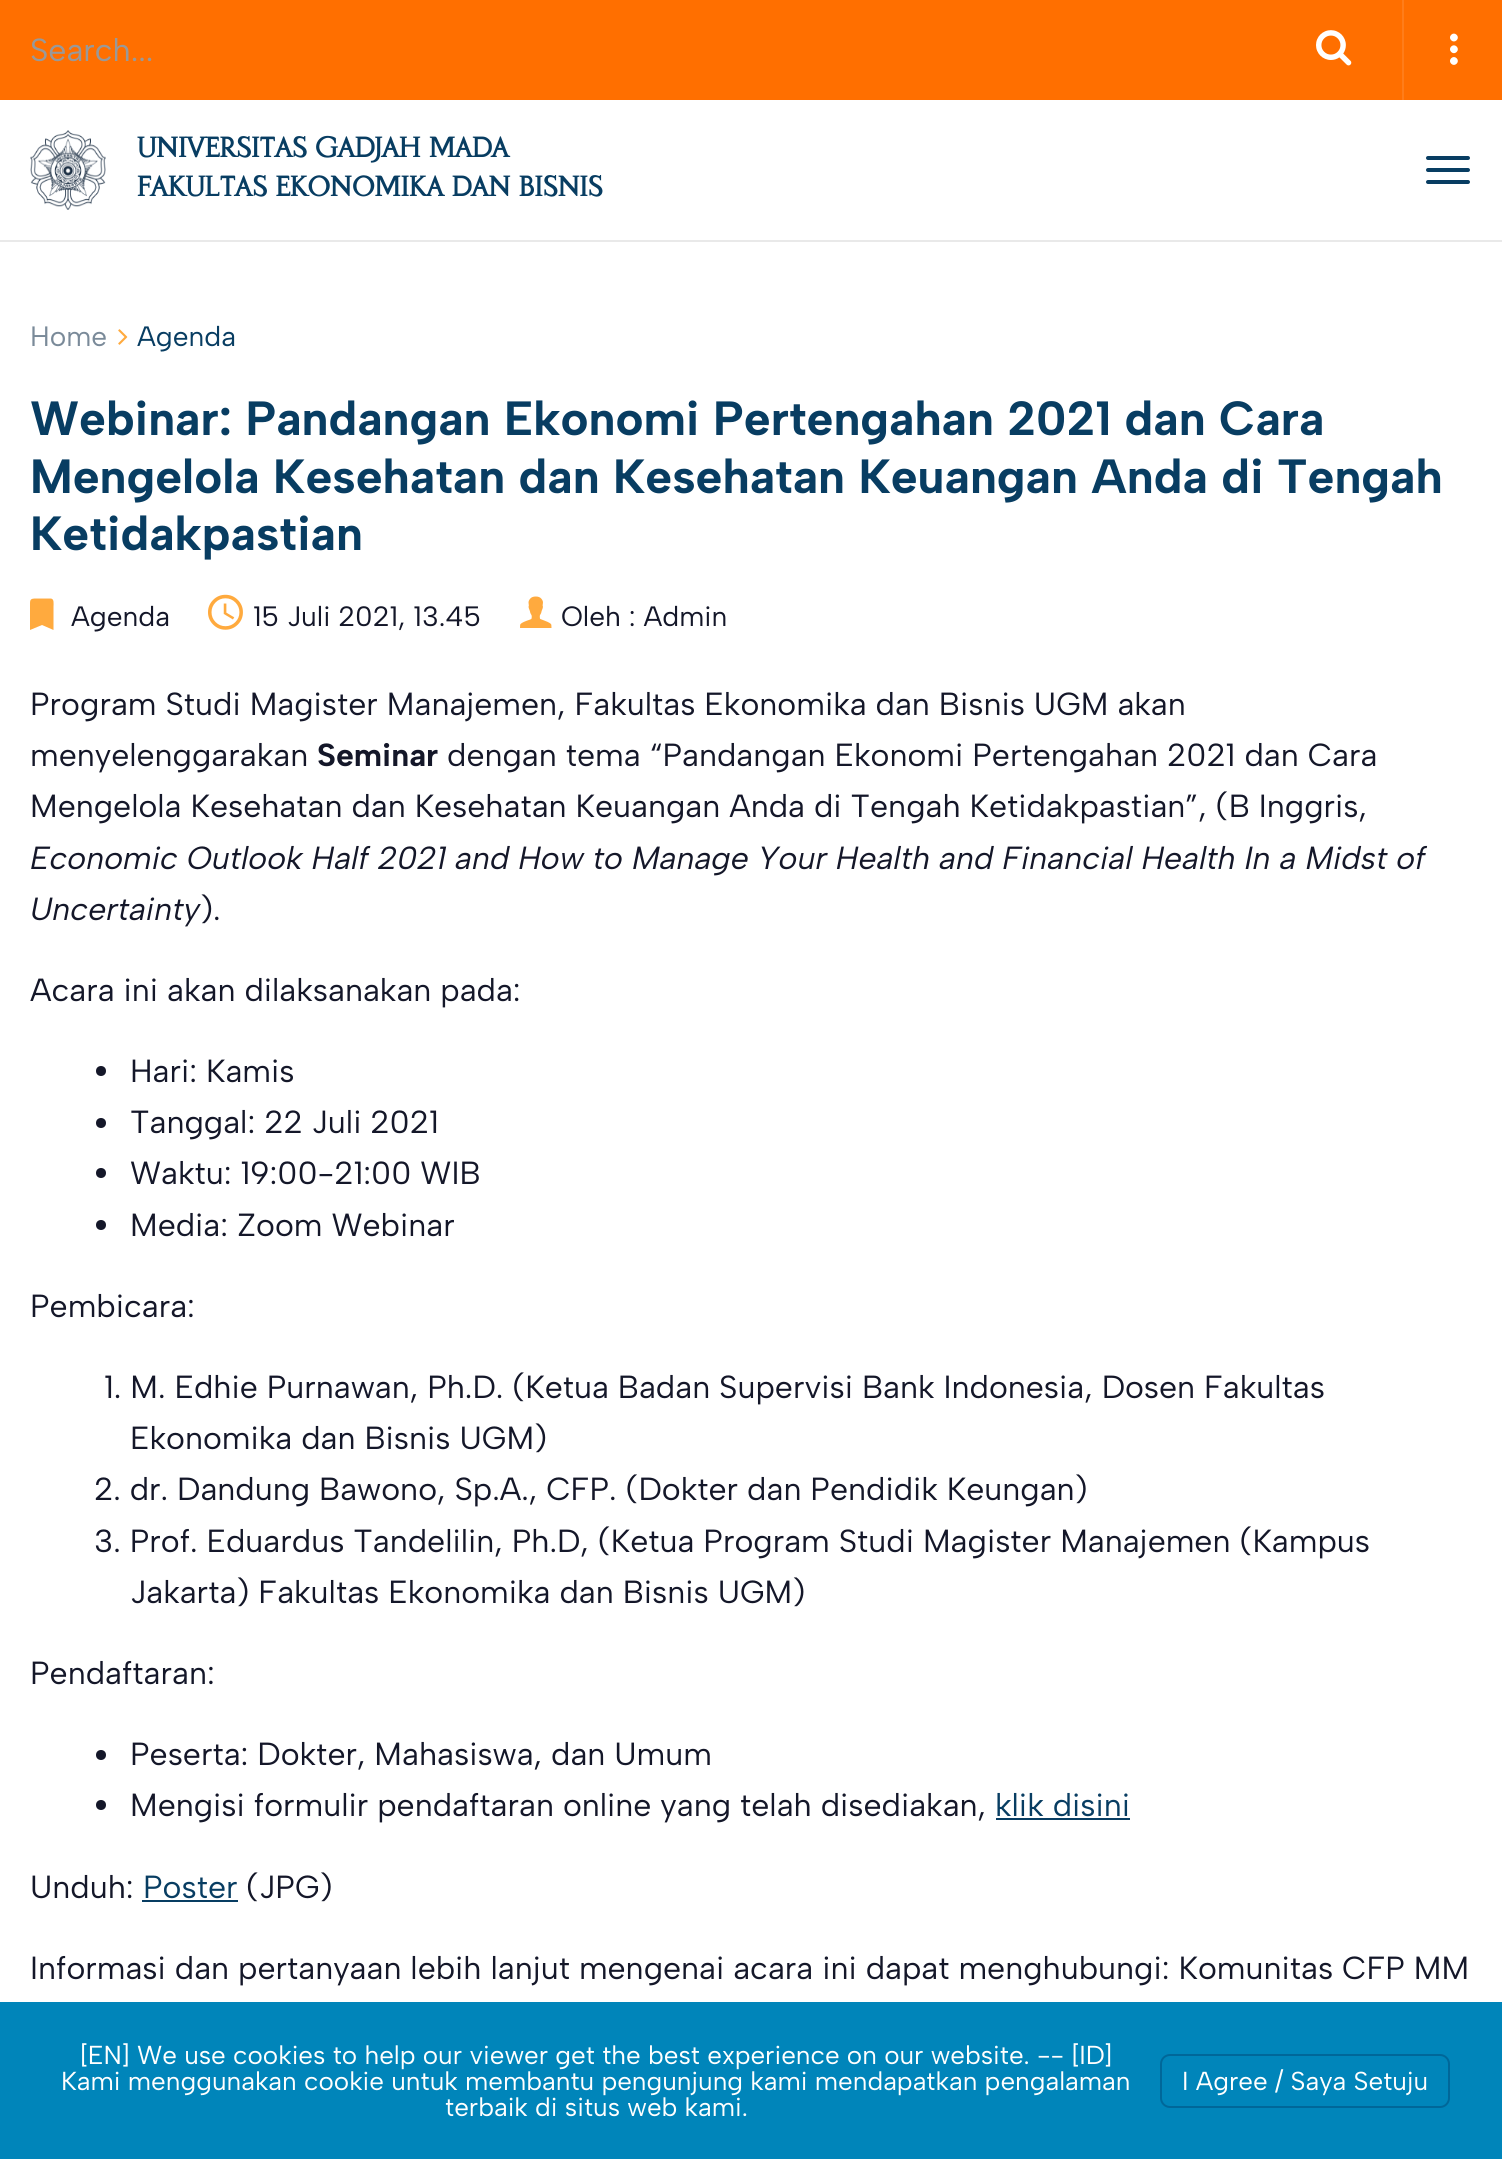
#include <cairo.h>
#include <math.h>
#include <stddef.h>

static cairo_t *ctx;

static void use_color(int r, int g, int b) {
    cairo_set_source_rgb(ctx, r / 255.0, g / 255.0, b / 255.0);
}

static void round_rect(double x, double y, double w, double h, double r) {
    cairo_new_sub_path(ctx);
    cairo_arc(ctx, x + w - r, y + h - r, r, 0, M_PI / 2);
    cairo_arc(ctx, x + r, y + h - r, r, M_PI / 2, M_PI);
    cairo_arc(ctx, x + r, y + r, r, M_PI, 1.5 * M_PI);
    cairo_arc(ctx, x + w - r, y + r, r, 1.5 * M_PI, 2 * M_PI);
    cairo_close_path(ctx);
}

static void picture(const char *path, double x, double y, double w, double h) {
    cairo_surface_t *image = cairo_image_surface_create_from_png(path);
    cairo_save(ctx);
    cairo_set_source_surface(ctx, image, x, y);
    cairo_rectangle(ctx, x, y, w, h);
    cairo_fill(ctx);
    cairo_restore(ctx);
    cairo_surface_destroy(image);
}

int main(void) {
    cairo_surface_t *surface = cairo_image_surface_create(CAIRO_FORMAT_RGB24, 1502, 2159);
    ctx = cairo_create(surface);
    cairo_font_options_t *options = cairo_font_options_create();
    cairo_font_options_set_hint_metrics(options, CAIRO_HINT_METRICS_OFF);
    cairo_font_options_set_hint_style(options, CAIRO_HINT_STYLE_NONE);
    cairo_set_font_options(ctx, options);
    cairo_set_miter_limit(ctx, 4);
    use_color(255, 255, 255);
    cairo_paint(ctx);
    use_color(233, 233, 233);
    cairo_rectangle(ctx, 0, 240, 1502, 2);
    cairo_fill(ctx);
    use_color(255, 111, 0);
    cairo_rectangle(ctx, 0, 0, 1502, 100);
    cairo_fill(ctx);
    cairo_select_font_face(ctx, "Albert Sans", CAIRO_FONT_SLANT_NORMAL, CAIRO_FONT_WEIGHT_NORMAL);
    cairo_set_font_size(ctx, 32);
    use_color(153, 153, 153);
    cairo_move_to(ctx, 30, 61);
    cairo_show_text(ctx, "Search...");
    picture("img1.png", 1316, 30, 36, 36);
    use_color(255, 125, 26);
    cairo_rectangle(ctx, 1402, 0, 2, 100);
    cairo_fill(ctx);
    picture("img2.png", 1450, 33, 8, 32);
    picture("img3.png", 30, 130, 76, 80);
    cairo_select_font_face(ctx, "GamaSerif", CAIRO_FONT_SLANT_NORMAL, CAIRO_FONT_WEIGHT_BOLD);
    cairo_set_font_size(ctx, 28);
    use_color(8, 61, 98);
    cairo_move_to(ctx, 137, 157);
    cairo_show_text(ctx, "UNIVERSITAS GADJAH MADA");
    cairo_move_to(ctx, 137, 196);
    cairo_show_text(ctx, "FAKULTAS EKONOMIKA DAN BISNIS");
    round_rect(1426, 156, 44, 4, 2);
    cairo_fill(ctx);
    round_rect(1426, 168, 44, 4, 2);
    cairo_fill(ctx);
    round_rect(1426, 180, 44, 4, 2);
    cairo_fill(ctx);
    cairo_select_font_face(ctx, "Albert Sans", CAIRO_FONT_SLANT_NORMAL, CAIRO_FONT_WEIGHT_NORMAL);
    use_color(122, 138, 153);
    cairo_move_to(ctx, 30, 346);
    cairo_show_text(ctx, "Home");
    picture("img4.png", 118, 329, 10, 16);
    use_color(8, 61, 98);
    cairo_move_to(ctx, 137, 346);
    cairo_show_text(ctx, "Agenda");
    cairo_select_font_face(ctx, "Albert Sans", CAIRO_FONT_SLANT_NORMAL, CAIRO_FONT_WEIGHT_BOLD);
    cairo_set_font_size(ctx, 48);
    cairo_move_to(ctx, 30, 435);
    cairo_show_text(ctx, "Webinar: Pandangan Ekonomi Pertengahan 2021 dan Cara");
    cairo_move_to(ctx, 30, 493);
    cairo_show_text(ctx, "Mengelola Kesehatan dan Kesehatan Keuangan Anda di Tengah");
    cairo_move_to(ctx, 30, 550);
    cairo_show_text(ctx, "Ketidakpastian");
    use_color(255, 170, 62);
    cairo_new_path(ctx);
    cairo_move_to(ctx, 50.5, 598.5);
    cairo_curve_to(ctx, 54.5, 598.5, 53.5, 604, 53.5, 606.5);
    cairo_line_to(ctx, 53.5, 630);
    cairo_line_to(ctx, 42, 625);
    cairo_line_to(ctx, 30, 630);
    cairo_line_to(ctx, 30, 606.5);
    cairo_curve_to(ctx, 30, 600, 29.5, 598.5, 36, 598.5);
    cairo_close_path(ctx);
    cairo_fill(ctx);
    cairo_select_font_face(ctx, "Albert Sans", CAIRO_FONT_SLANT_NORMAL, CAIRO_FONT_WEIGHT_NORMAL);
    cairo_set_font_size(ctx, 28);
    use_color(20, 23, 41);
    cairo_move_to(ctx, 71, 626);
    cairo_show_text(ctx, "Agenda");
    picture("img5.png", 208, 594, 35, 36);
    cairo_move_to(ctx, 253, 626);
    cairo_show_text(ctx, "15 Juli 2021, 13.45");
    picture("img6.png", 520, 596, 32, 32);
    cairo_move_to(ctx, 561, 626);
    cairo_show_text(ctx, "Oleh : Admin");
    cairo_set_font_size(ctx, 32);
    cairo_move_to(ctx, 30, 715);
    cairo_show_text(ctx, "Program Studi Magister Manajemen, Fakultas Ekonomika dan Bisnis UGM akan");
    cairo_move_to(ctx, 30, 766);
    cairo_show_text(ctx, "menyelenggarakan");
    cairo_select_font_face(ctx, "Albert Sans", CAIRO_FONT_SLANT_NORMAL, CAIRO_FONT_WEIGHT_BOLD);
    cairo_move_to(ctx, 317, 766);
    cairo_show_text(ctx, "Seminar");
    cairo_select_font_face(ctx, "Albert Sans", CAIRO_FONT_SLANT_NORMAL, CAIRO_FONT_WEIGHT_NORMAL);
    cairo_move_to(ctx, 447, 766);
    cairo_show_text(ctx, "dengan tema “Pandangan Ekonomi Pertengahan 2021 dan Cara");
    cairo_move_to(ctx, 30, 817);
    cairo_show_text(ctx, "Mengelola Kesehatan dan Kesehatan Keuangan Anda di Tengah Ketidakpastian”, (B Inggris,");
    cairo_select_font_face(ctx, "Albert Sans", CAIRO_FONT_SLANT_ITALIC, CAIRO_FONT_WEIGHT_NORMAL);
    cairo_move_to(ctx, 30, 869);
    cairo_show_text(ctx, "Economic Outlook Half 2021 and How to Manage Your Health and Financial Health In a Midst of");
    cairo_move_to(ctx, 30, 920);
    cairo_show_text(ctx, "Uncertainty");
    cairo_select_font_face(ctx, "Albert Sans", CAIRO_FONT_SLANT_NORMAL, CAIRO_FONT_WEIGHT_NORMAL);
    cairo_move_to(ctx, 200, 920);
    cairo_show_text(ctx, ").");
    cairo_move_to(ctx, 30, 1001);
    cairo_show_text(ctx, "Acara ini akan dilaksanakan pada:");
    cairo_new_path(ctx);
    cairo_arc(ctx, 101, 1071, 5, 0, 2 * M_PI);
    cairo_fill(ctx);
    cairo_move_to(ctx, 130, 1082);
    cairo_show_text(ctx, "Hari: Kamis");
    cairo_new_path(ctx);
    cairo_arc(ctx, 101, 1123, 5, 0, 2 * M_PI);
    cairo_fill(ctx);
    cairo_move_to(ctx, 130, 1133);
    cairo_show_text(ctx, "Tanggal: 22 Juli 2021");
    cairo_new_path(ctx);
    cairo_arc(ctx, 101, 1173, 5, 0, 2 * M_PI);
    cairo_fill(ctx);
    cairo_move_to(ctx, 130, 1184);
    cairo_show_text(ctx, "Waktu: 19:00-21:00 WIB");
    cairo_new_path(ctx);
    cairo_arc(ctx, 101, 1225, 5, 0, 2 * M_PI);
    cairo_fill(ctx);
    cairo_move_to(ctx, 130, 1236);
    cairo_show_text(ctx, "Media: Zoom Webinar");
    cairo_move_to(ctx, 30, 1317);
    cairo_show_text(ctx, "Pembicara:");
    cairo_move_to(ctx, 104, 1398);
    cairo_show_text(ctx, "1. M. Edhie Purnawan, Ph.D. (Ketua Badan Supervisi Bank Indonesia, Dosen Fakultas");
    cairo_move_to(ctx, 130, 1449);
    cairo_show_text(ctx, "Ekonomika dan Bisnis UGM)");
    cairo_move_to(ctx, 94, 1500);
    cairo_show_text(ctx, "2. dr. Dandung Bawono, Sp.A., CFP. (Dokter dan Pendidik Keungan)");
    cairo_move_to(ctx, 94, 1552);
    cairo_show_text(ctx, "3. Prof. Eduardus Tandelilin, Ph.D, (Ketua Program Studi Magister Manajemen (Kampus");
    cairo_move_to(ctx, 130, 1603);
    cairo_show_text(ctx, "Jakarta) Fakultas Ekonomika dan Bisnis UGM)");
    cairo_move_to(ctx, 30, 1684);
    cairo_show_text(ctx, "Pendaftaran:");
    cairo_new_path(ctx);
    cairo_arc(ctx, 101, 1755, 5, 0, 2 * M_PI);
    cairo_fill(ctx);
    cairo_move_to(ctx, 130, 1765);
    cairo_show_text(ctx, "Peserta: Dokter, Mahasiswa, dan Umum");
    cairo_new_path(ctx);
    cairo_arc(ctx, 101, 1805, 5, 0, 2 * M_PI);
    cairo_fill(ctx);
    cairo_move_to(ctx, 130, 1816);
    cairo_show_text(ctx, "Mengisi formulir pendaftaran online yang telah disediakan,");
    use_color(8, 61, 98);
    cairo_move_to(ctx, 995, 1816);
    cairo_show_text(ctx, "klik disini");
    cairo_rectangle(ctx, 996, 1818, 134, 2);
    cairo_fill(ctx);
    use_color(20, 23, 41);
    cairo_move_to(ctx, 30, 1898);
    cairo_show_text(ctx, "Unduh:");
    use_color(8, 61, 98);
    cairo_move_to(ctx, 143, 1898);
    cairo_show_text(ctx, "Poster");
    cairo_rectangle(ctx, 142, 1900, 96, 2);
    cairo_fill(ctx);
    use_color(20, 23, 41);
    cairo_move_to(ctx, 246, 1898);
    cairo_show_text(ctx, "(JPG)");
    cairo_move_to(ctx, 30, 1979);
    cairo_show_text(ctx, "Informasi dan pertanyaan lebih lanjut mengenai acara ini dapat menghubungi: Komunitas CFP MM");
    use_color(0, 133, 186);
    cairo_rectangle(ctx, 0, 2002, 1502, 157);
    cairo_fill(ctx);
    cairo_set_font_size(ctx, 26);
    use_color(255, 255, 255);
    cairo_move_to(ctx, 80, 2064);
    cairo_show_text(ctx, "[EN] We use cookies to help our viewer get the best experience on our website. -- [ID]");
    cairo_move_to(ctx, 61, 2090);
    cairo_show_text(ctx, "Kami menggunakan cookie untuk membantu pengunjung kami mendapatkan pengalaman");
    cairo_move_to(ctx, 445, 2116);
    cairo_show_text(ctx, "terbaik di situs web kami.");
    round_rect(1161, 2055, 288, 52, 9);
    use_color(0, 103, 153);
    cairo_stroke(ctx);
    use_color(255, 255, 255);
    cairo_move_to(ctx, 1182, 2090);
    cairo_show_text(ctx, "I Agree / Saya Setuju");
    cairo_surface_write_to_png(surface, "result.png");
    cairo_font_options_destroy(options);
    cairo_destroy(ctx);
    cairo_surface_destroy(surface);
    return 0;
}
